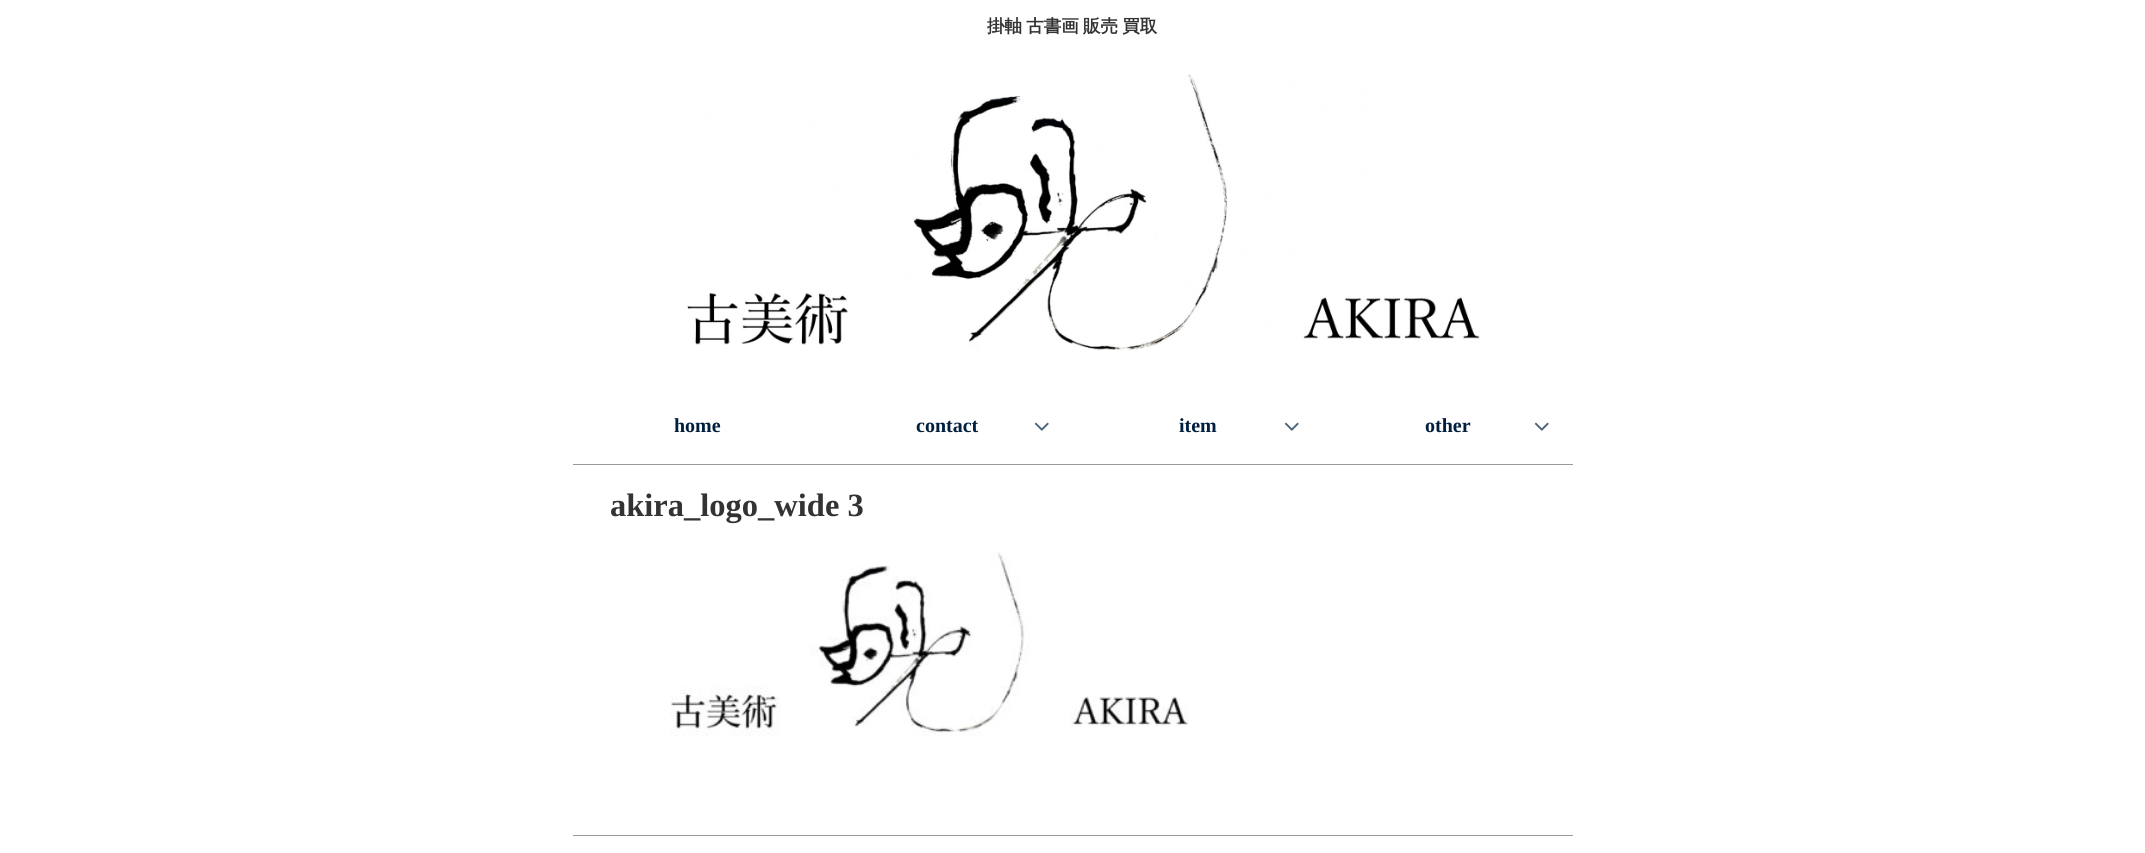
#include <cairo.h>
#include <math.h>
#include <stddef.h>

static cairo_t *ctx;

static void use_color(int r, int g, int b) {
    cairo_set_source_rgb(ctx, r / 255.0, g / 255.0, b / 255.0);
}

static void spaced_text(double x, double y, const char *s, double letter, double word) {
    cairo_move_to(ctx, x, y);
    while (*s) {
        char ch[5] = {0};
        int n = 0;
        do ch[n++] = *s++; while ((*s & 0xC0) == 0x80);
        cairo_show_text(ctx, ch);
        cairo_rel_move_to(ctx, letter + word * (*ch == ' '), 0);
    }
}

static void picture(const char *path, double x, double y, double w, double h) {
    cairo_surface_t *image = cairo_image_surface_create_from_png(path);
    cairo_save(ctx);
    cairo_set_source_surface(ctx, image, x, y);
    cairo_rectangle(ctx, x, y, w, h);
    cairo_fill(ctx);
    cairo_restore(ctx);
    cairo_surface_destroy(image);
}

int main(void) {
    cairo_surface_t *surface = cairo_image_surface_create(CAIRO_FORMAT_RGB24, 2145, 853);
    ctx = cairo_create(surface);
    cairo_font_options_t *options = cairo_font_options_create();
    cairo_font_options_set_hint_metrics(options, CAIRO_HINT_METRICS_OFF);
    cairo_font_options_set_hint_style(options, CAIRO_HINT_STYLE_NONE);
    cairo_set_font_options(ctx, options);
    cairo_set_miter_limit(ctx, 4);
    use_color(255, 255, 255);
    cairo_paint(ctx);
    use_color(153, 153, 153);
    cairo_rectangle(ctx, 573, 464, 1000, 1);
    cairo_fill(ctx);
    cairo_select_font_face(ctx, "WenQuanYi Zen Hei", CAIRO_FONT_SLANT_NORMAL, CAIRO_FONT_WEIGHT_BOLD);
    cairo_set_font_size(ctx, 17.5);
    use_color(51, 51, 51);
    spaced_text(987, 32, "掛軸 古書画 販売 買取", 0, -1);
    picture("img1.png", 687, 74, 793, 276);
    cairo_select_font_face(ctx, "Liberation Serif", CAIRO_FONT_SLANT_NORMAL, CAIRO_FONT_WEIGHT_BOLD);
    cairo_set_font_size(ctx, 20);
    use_color(0, 32, 61);
    cairo_move_to(ctx, 674, 432);
    cairo_show_text(ctx, "home");
    cairo_move_to(ctx, 916, 432);
    cairo_show_text(ctx, "contact");
    picture("img2.png", 1034, 422, 15, 9);
    cairo_move_to(ctx, 1179, 432);
    cairo_show_text(ctx, "item");
    picture("img2.png", 1284, 422, 15, 9);
    cairo_move_to(ctx, 1425, 432);
    cairo_show_text(ctx, "other");
    picture("img2.png", 1534, 422, 15, 9);
    cairo_set_font_size(ctx, 32.5);
    use_color(51, 51, 51);
    cairo_move_to(ctx, 610, 516);
    cairo_show_text(ctx, "akira_logo_wide 3");
    picture("img3.png", 670, 552, 519, 184);
    use_color(153, 153, 153);
    cairo_rectangle(ctx, 573, 835, 1000, 1);
    cairo_fill(ctx);
    cairo_surface_write_to_png(surface, "result.png");
    cairo_font_options_destroy(options);
    cairo_destroy(ctx);
    cairo_surface_destroy(surface);
    return 0;
}
